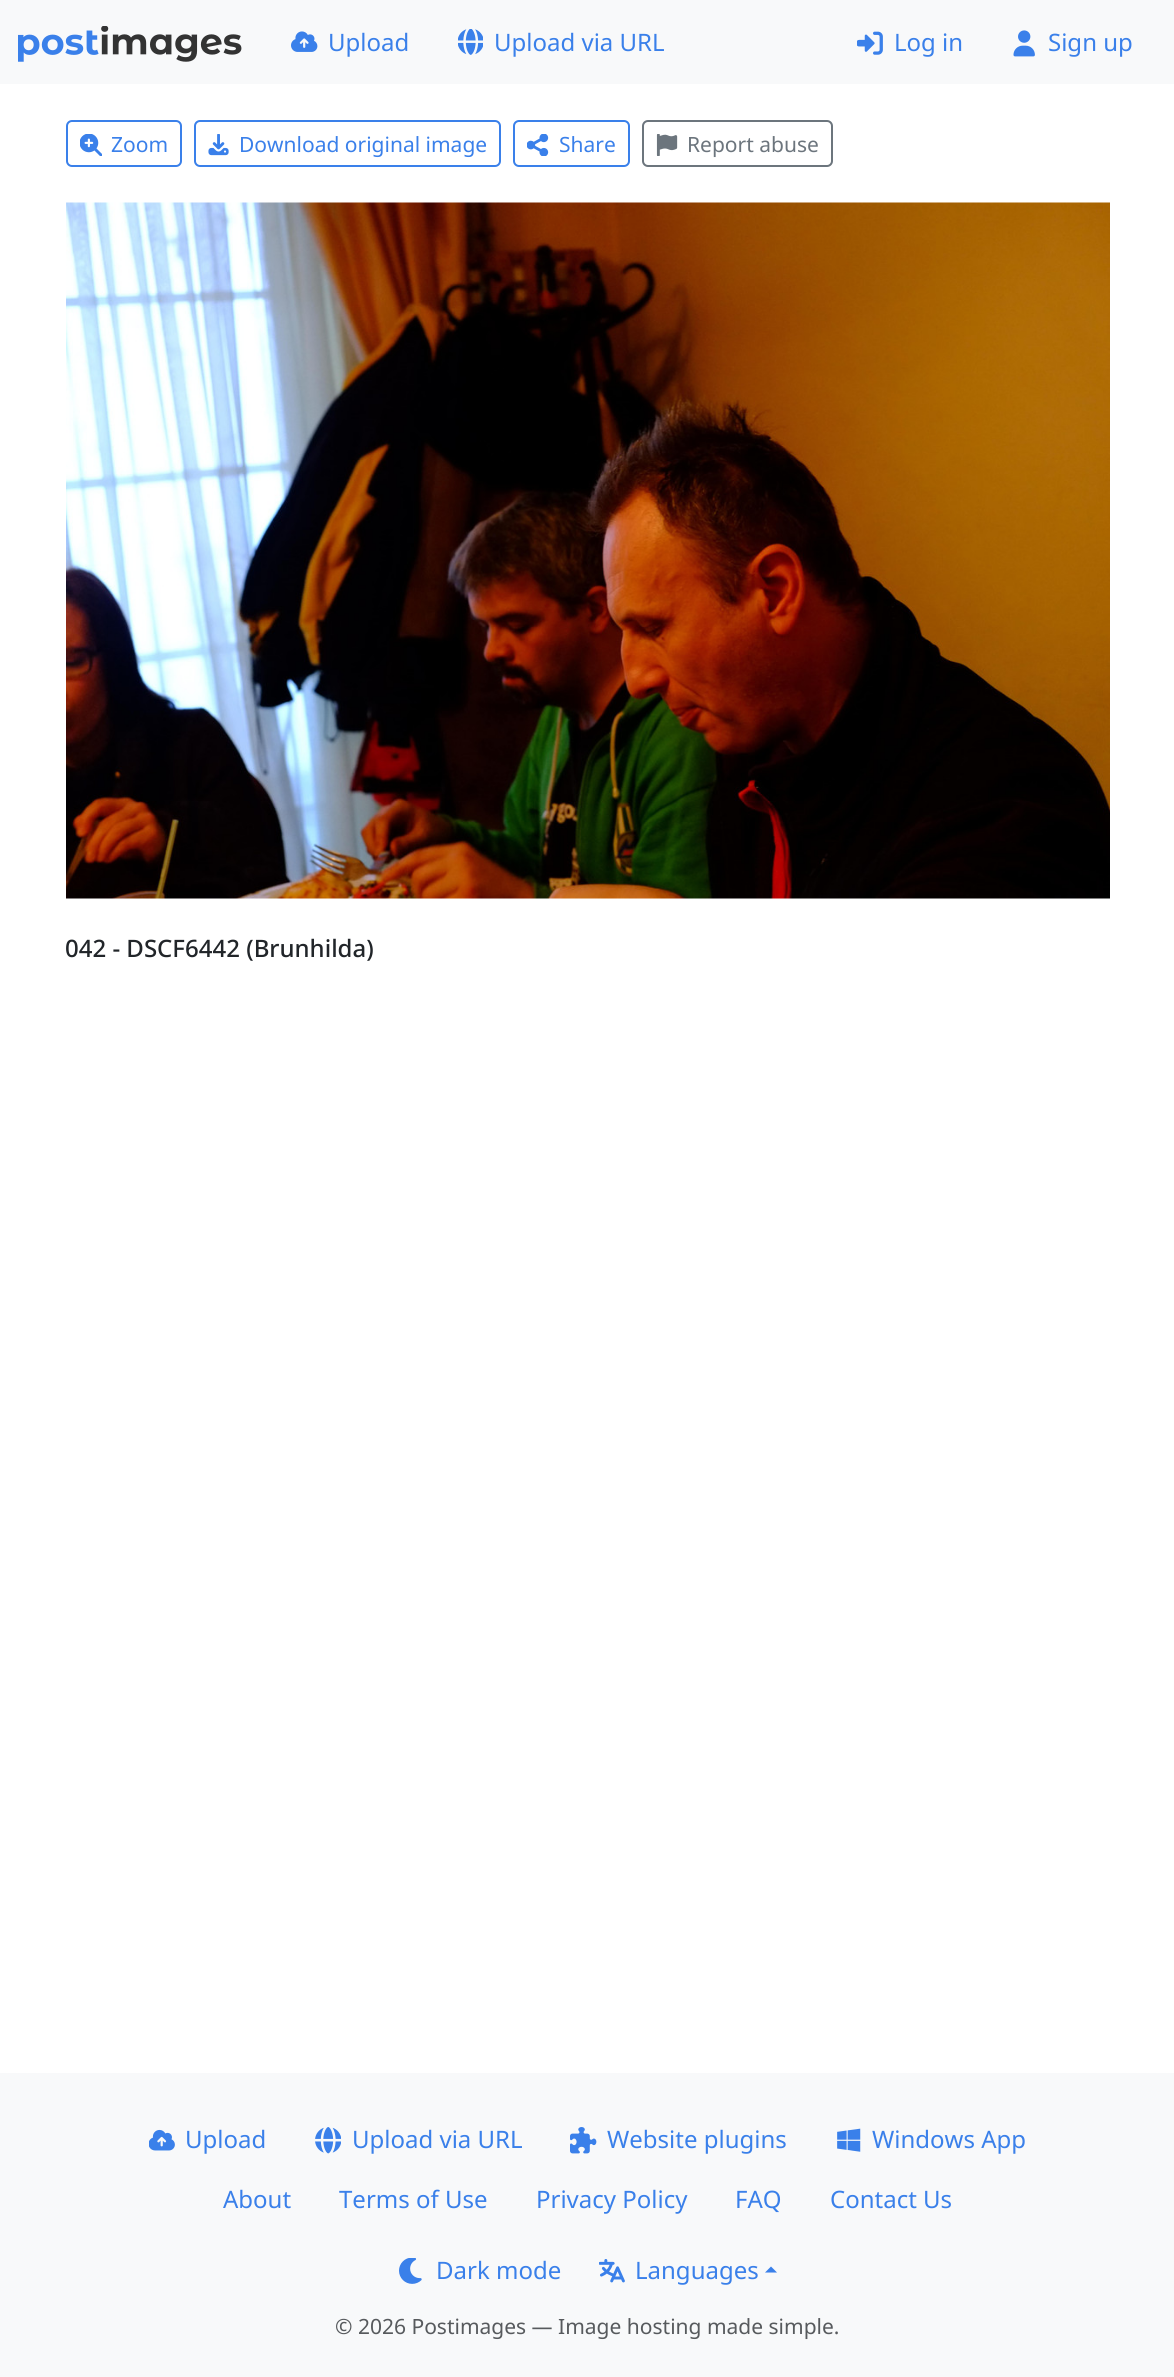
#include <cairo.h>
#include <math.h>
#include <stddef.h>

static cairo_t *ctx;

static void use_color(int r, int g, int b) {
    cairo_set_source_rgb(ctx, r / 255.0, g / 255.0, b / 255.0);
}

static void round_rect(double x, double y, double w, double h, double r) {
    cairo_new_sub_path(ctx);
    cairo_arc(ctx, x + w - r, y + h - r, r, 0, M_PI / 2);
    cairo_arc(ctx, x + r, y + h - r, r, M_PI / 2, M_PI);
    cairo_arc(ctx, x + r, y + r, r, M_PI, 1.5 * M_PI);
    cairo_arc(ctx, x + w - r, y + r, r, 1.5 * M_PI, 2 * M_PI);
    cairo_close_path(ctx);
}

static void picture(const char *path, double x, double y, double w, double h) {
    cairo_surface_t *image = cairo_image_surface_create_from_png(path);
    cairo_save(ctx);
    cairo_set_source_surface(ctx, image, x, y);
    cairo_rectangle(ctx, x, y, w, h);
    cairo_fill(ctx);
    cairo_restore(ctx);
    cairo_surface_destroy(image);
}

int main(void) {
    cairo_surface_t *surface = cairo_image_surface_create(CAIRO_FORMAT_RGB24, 1174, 2377);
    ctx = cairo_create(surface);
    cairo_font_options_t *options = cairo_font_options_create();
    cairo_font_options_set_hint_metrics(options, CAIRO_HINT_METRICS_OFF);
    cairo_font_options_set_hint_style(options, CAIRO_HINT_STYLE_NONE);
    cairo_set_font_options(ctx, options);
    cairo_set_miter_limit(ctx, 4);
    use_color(255, 255, 255);
    cairo_paint(ctx);
    use_color(248, 249, 250);
    cairo_rectangle(ctx, 0, 0, 1174, 84);
    cairo_fill(ctx);
    picture("img1.png", 18, 26, 224, 36);
    picture("img2.png", 291, 31, 27, 21);
    cairo_select_font_face(ctx, "Noto Sans", CAIRO_FONT_SLANT_NORMAL, CAIRO_FONT_WEIGHT_NORMAL);
    cairo_set_font_size(ctx, 24);
    use_color(58, 128, 234);
    cairo_move_to(ctx, 328, 51);
    cairo_show_text(ctx, "Upload");
    picture("img3.png", 458, 29, 25, 26);
    cairo_move_to(ctx, 494, 51);
    cairo_show_text(ctx, "Upload via URL");
    picture("img4.png", 857, 31, 26, 24);
    cairo_move_to(ctx, 894, 51);
    cairo_show_text(ctx, "Log in");
    picture("img5.png", 1013, 30, 22, 27);
    cairo_move_to(ctx, 1048, 51);
    cairo_show_text(ctx, "Sign up");
    round_rect(67, 121, 114, 45, 5);
    cairo_stroke(ctx);
    picture("img6.png", 80, 134, 22, 22);
    cairo_set_font_size(ctx, 21);
    cairo_move_to(ctx, 111, 152);
    cairo_show_text(ctx, "Zoom");
    round_rect(195, 121, 305, 45, 5);
    cairo_stroke(ctx);
    picture("img7.png", 208, 134, 21, 22);
    cairo_move_to(ctx, 239, 152);
    cairo_show_text(ctx, "Download original image");
    round_rect(514, 121, 115, 45, 5);
    cairo_stroke(ctx);
    picture("img8.png", 527, 134, 22, 22);
    cairo_move_to(ctx, 559, 152);
    cairo_show_text(ctx, "Share");
    round_rect(643, 121, 189, 45, 5);
    use_color(108, 117, 125);
    cairo_stroke(ctx);
    picture("img9.png", 656, 134, 22, 22);
    cairo_move_to(ctx, 687, 152);
    cairo_show_text(ctx, "Report abuse");
    picture("img10.png", 66, 202, 1044, 697);
    cairo_select_font_face(ctx, "Noto Sans Medium", CAIRO_FONT_SLANT_NORMAL, CAIRO_FONT_WEIGHT_NORMAL);
    cairo_set_font_size(ctx, 24);
    use_color(33, 37, 41);
    cairo_move_to(ctx, 65, 957);
    cairo_show_text(ctx, "042 - DSCF6442 (Brunhilda)");
    use_color(248, 249, 250);
    cairo_rectangle(ctx, 0, 2073, 1174, 304);
    cairo_fill(ctx);
    picture("img11.png", 149, 2129, 26, 22);
    cairo_select_font_face(ctx, "Noto Sans", CAIRO_FONT_SLANT_NORMAL, CAIRO_FONT_WEIGHT_NORMAL);
    use_color(58, 128, 234);
    cairo_move_to(ctx, 185, 2148);
    cairo_show_text(ctx, "Upload");
    picture("img12.png", 315, 2127, 26, 27);
    cairo_move_to(ctx, 352, 2148);
    cairo_show_text(ctx, "Upload via URL");
    picture("img13.png", 570, 2127, 27, 27);
    cairo_move_to(ctx, 607, 2148);
    cairo_show_text(ctx, "Website plugins");
    picture("img14.png", 837, 2128, 24, 24);
    cairo_move_to(ctx, 872, 2148);
    cairo_show_text(ctx, "Windows App");
    cairo_move_to(ctx, 223, 2208);
    cairo_show_text(ctx, "About");
    cairo_move_to(ctx, 339, 2208);
    cairo_show_text(ctx, "Terms of Use");
    cairo_move_to(ctx, 536, 2208);
    cairo_show_text(ctx, "Privacy Policy");
    cairo_move_to(ctx, 735, 2208);
    cairo_show_text(ctx, "FAQ");
    cairo_move_to(ctx, 830, 2208);
    cairo_show_text(ctx, "Contact Us");
    picture("img15.png", 399, 2258, 23, 26);
    cairo_move_to(ctx, 436, 2279);
    cairo_show_text(ctx, "Dark mode");
    picture("img16.png", 599, 2259, 26, 24);
    cairo_move_to(ctx, 635, 2279);
    cairo_show_text(ctx, "Languages");
    cairo_new_path(ctx);
    cairo_move_to(ctx, 777, 2272.5);
    cairo_line_to(ctx, 765, 2272.5);
    cairo_line_to(ctx, 771, 2266.5);
    cairo_close_path(ctx);
    cairo_fill(ctx);
    cairo_set_font_size(ctx, 21);
    use_color(87, 90, 93);
    cairo_move_to(ctx, 335, 2334);
    cairo_show_text(ctx, "© 2026 Postimages — Image hosting made simple.");
    cairo_surface_write_to_png(surface, "result.png");
    cairo_font_options_destroy(options);
    cairo_destroy(ctx);
    cairo_surface_destroy(surface);
    return 0;
}
